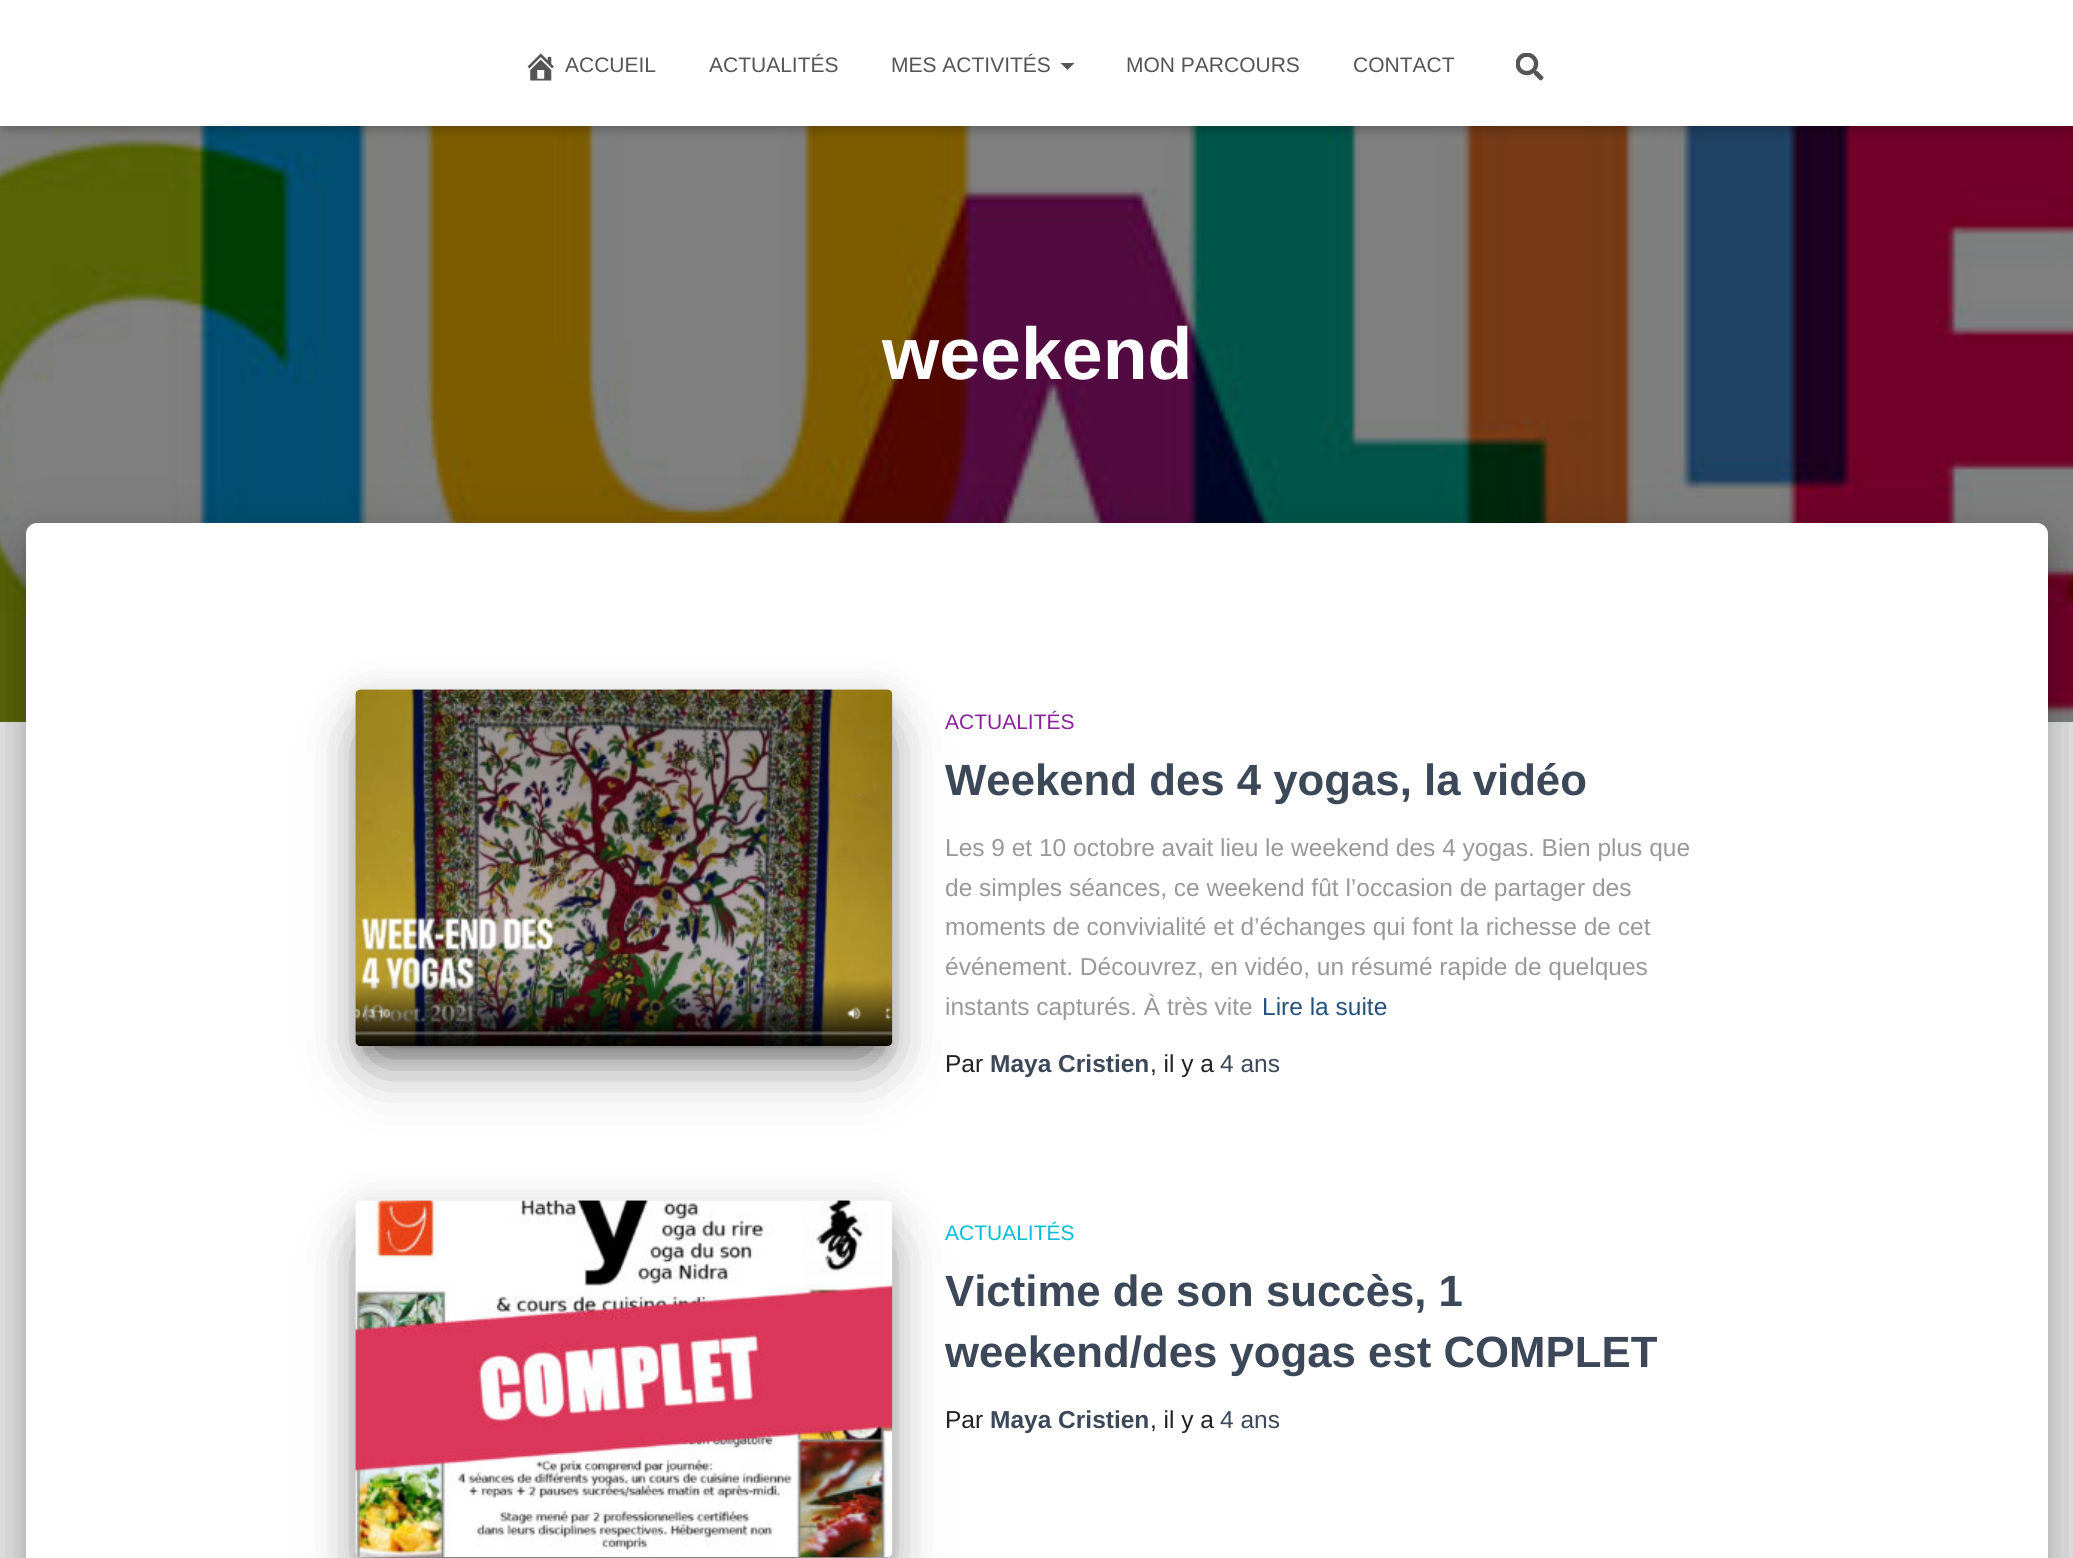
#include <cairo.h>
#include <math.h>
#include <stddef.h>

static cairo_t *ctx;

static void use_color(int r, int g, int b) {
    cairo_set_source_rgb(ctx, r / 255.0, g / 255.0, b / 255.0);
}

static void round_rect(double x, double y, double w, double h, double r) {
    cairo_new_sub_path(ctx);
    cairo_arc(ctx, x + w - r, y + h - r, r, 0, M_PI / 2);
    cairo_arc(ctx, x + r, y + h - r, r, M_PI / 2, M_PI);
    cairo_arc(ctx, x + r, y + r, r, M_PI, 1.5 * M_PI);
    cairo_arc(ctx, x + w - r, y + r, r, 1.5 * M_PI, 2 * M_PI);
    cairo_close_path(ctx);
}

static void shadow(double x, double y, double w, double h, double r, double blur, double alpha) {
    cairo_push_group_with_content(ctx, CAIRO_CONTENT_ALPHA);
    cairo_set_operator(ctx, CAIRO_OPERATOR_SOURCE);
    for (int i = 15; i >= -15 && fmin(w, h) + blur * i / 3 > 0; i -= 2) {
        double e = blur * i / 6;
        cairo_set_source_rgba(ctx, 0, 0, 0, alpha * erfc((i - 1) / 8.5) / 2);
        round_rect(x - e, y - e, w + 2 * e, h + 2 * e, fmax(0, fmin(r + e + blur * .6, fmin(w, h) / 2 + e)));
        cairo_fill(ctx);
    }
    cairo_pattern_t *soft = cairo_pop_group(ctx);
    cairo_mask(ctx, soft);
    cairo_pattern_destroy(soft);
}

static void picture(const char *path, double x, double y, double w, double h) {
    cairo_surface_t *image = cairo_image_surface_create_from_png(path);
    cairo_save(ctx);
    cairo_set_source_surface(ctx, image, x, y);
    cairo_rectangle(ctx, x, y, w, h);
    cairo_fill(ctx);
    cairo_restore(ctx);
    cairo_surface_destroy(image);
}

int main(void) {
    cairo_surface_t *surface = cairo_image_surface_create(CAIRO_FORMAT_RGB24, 2073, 1558);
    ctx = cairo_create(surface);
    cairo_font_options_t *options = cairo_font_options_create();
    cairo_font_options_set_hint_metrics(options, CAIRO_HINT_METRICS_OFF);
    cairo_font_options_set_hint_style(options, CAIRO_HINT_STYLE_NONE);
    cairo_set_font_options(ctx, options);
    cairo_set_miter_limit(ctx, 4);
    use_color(229, 229, 229);
    cairo_paint(ctx);
    picture("img3.png", 0, 126, 2073, 596);
    use_color(0, 0, 0);
    shadow(4, 11, 2066, 119, 0, 4.5, 0.1);
    shadow(0, 2, 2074, 126, 0, 9, 0.12);
    shadow(11, 12, 2052, 105, 0, 9, 0.42);
    use_color(255, 255, 255);
    cairo_rectangle(ctx, 0, 0, 2073, 126);
    cairo_fill(ctx);
    picture("img1.png", 527, 53, 27, 28);
    cairo_select_font_face(ctx, "Liberation Sans", CAIRO_FONT_SLANT_NORMAL, CAIRO_FONT_WEIGHT_NORMAL);
    cairo_set_font_size(ctx, 21);
    use_color(85, 85, 85);
    cairo_move_to(ctx, 565, 72);
    cairo_show_text(ctx, "ACCUEIL");
    cairo_move_to(ctx, 709, 72);
    cairo_show_text(ctx, "ACTUALITÉS");
    cairo_move_to(ctx, 891, 72);
    cairo_show_text(ctx, "MES ACTIVITÉS");
    cairo_new_path(ctx);
    cairo_move_to(ctx, 1060.5, 63);
    cairo_line_to(ctx, 1074.5, 63);
    cairo_line_to(ctx, 1067.5, 70);
    cairo_close_path(ctx);
    cairo_fill(ctx);
    cairo_move_to(ctx, 1126, 72);
    cairo_show_text(ctx, "MON PARCOURS");
    cairo_move_to(ctx, 1353, 72);
    cairo_show_text(ctx, "CONTACT");
    picture("img2.png", 1516, 53, 28, 28);
    cairo_select_font_face(ctx, "Liberation Sans", CAIRO_FONT_SLANT_NORMAL, CAIRO_FONT_WEIGHT_BOLD);
    cairo_set_font_size(ctx, 73.5);
    use_color(255, 255, 255);
    cairo_move_to(ctx, 882, 379);
    cairo_show_text(ctx, "weekend");
    use_color(0, 0, 0);
    shadow(35, 546, 2004, 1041, 2, 9, 0.2);
    shadow(18, 525, 2038, 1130, 19, 26, 0.12);
    shadow(23, 548, 2028, 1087, 14, 21, 0.14);
    use_color(255, 255, 255);
    cairo_new_path(ctx);
    cairo_move_to(ctx, 37, 523);
    cairo_line_to(ctx, 2037, 523);
    cairo_curve_to(ctx, 2043, 523, 2048, 528, 2048, 534);
    cairo_line_to(ctx, 2048, 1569);
    cairo_line_to(ctx, 26, 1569);
    cairo_line_to(ctx, 26, 534);
    cairo_curve_to(ctx, 26, 528, 31, 523, 37, 523);
    cairo_close_path(ctx);
    cairo_fill(ctx);
    use_color(0, 0, 0);
    shadow(364, 712, 520, 340, 0, 9, 0.2);
    shadow(355, 697, 538, 357, 5, 22, 0.12);
    shadow(376, 739, 496, 315, 0, 33, 0.56);
    picture("img4.png", 355, 689, 538, 357);
    cairo_select_font_face(ctx, "Liberation Sans", CAIRO_FONT_SLANT_NORMAL, CAIRO_FONT_WEIGHT_NORMAL);
    cairo_set_font_size(ctx, 21);
    use_color(137, 34, 155);
    cairo_move_to(ctx, 945, 729);
    cairo_show_text(ctx, "ACTUALITÉS");
    cairo_select_font_face(ctx, "Liberation Sans", CAIRO_FONT_SLANT_NORMAL, CAIRO_FONT_WEIGHT_BOLD);
    cairo_set_font_size(ctx, 43.75);
    use_color(60, 72, 88);
    cairo_move_to(ctx, 945, 795);
    cairo_show_text(ctx, "Weekend des 4 yogas, la vidéo");
    cairo_select_font_face(ctx, "Liberation Sans", CAIRO_FONT_SLANT_NORMAL, CAIRO_FONT_WEIGHT_NORMAL);
    cairo_set_font_size(ctx, 24.5);
    use_color(153, 153, 153);
    cairo_move_to(ctx, 945, 856);
    cairo_show_text(ctx, "Les 9 et 10 octobre avait lieu le weekend des 4 yogas. Bien plus que");
    cairo_move_to(ctx, 945, 896);
    cairo_show_text(ctx, "de simples séances, ce weekend fût l’occasion de partager des");
    cairo_move_to(ctx, 945, 935);
    cairo_show_text(ctx, "moments de convivialité et d’échanges qui font la richesse de cet");
    cairo_move_to(ctx, 945, 975);
    cairo_show_text(ctx, "événement. Découvrez, en vidéo, un résumé rapide de quelques");
    cairo_move_to(ctx, 945, 1015);
    cairo_show_text(ctx, "instants capturés. À très vite");
    use_color(35, 82, 124);
    cairo_move_to(ctx, 1262, 1015);
    cairo_show_text(ctx, "Lire la suite");
    use_color(33, 33, 33);
    cairo_move_to(ctx, 945, 1072);
    cairo_show_text(ctx, "Par");
    cairo_select_font_face(ctx, "Liberation Sans", CAIRO_FONT_SLANT_NORMAL, CAIRO_FONT_WEIGHT_BOLD);
    use_color(60, 72, 88);
    cairo_move_to(ctx, 990, 1072);
    cairo_show_text(ctx, "Maya Cristien");
    cairo_select_font_face(ctx, "Liberation Sans", CAIRO_FONT_SLANT_NORMAL, CAIRO_FONT_WEIGHT_NORMAL);
    use_color(33, 33, 33);
    cairo_move_to(ctx, 1150, 1072);
    cairo_show_text(ctx, ", il y a");
    use_color(60, 72, 88);
    cairo_move_to(ctx, 1220, 1072);
    cairo_show_text(ctx, "4 ans");
    use_color(0, 0, 0);
    shadow(364, 1223, 520, 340, 0, 9, 0.2);
    shadow(355, 1208, 538, 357, 5, 22, 0.12);
    shadow(376, 1250, 496, 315, 0, 33, 0.56);
    picture("img5.png", 355, 1200, 538, 357);
    cairo_set_font_size(ctx, 21);
    use_color(0, 188, 212);
    cairo_move_to(ctx, 945, 1240);
    cairo_show_text(ctx, "ACTUALITÉS");
    cairo_select_font_face(ctx, "Liberation Sans", CAIRO_FONT_SLANT_NORMAL, CAIRO_FONT_WEIGHT_BOLD);
    cairo_set_font_size(ctx, 43.75);
    use_color(60, 72, 88);
    cairo_move_to(ctx, 945, 1306);
    cairo_show_text(ctx, "Victime de son succès, 1");
    cairo_move_to(ctx, 945, 1367);
    cairo_show_text(ctx, "weekend/des yogas est COMPLET");
    cairo_select_font_face(ctx, "Liberation Sans", CAIRO_FONT_SLANT_NORMAL, CAIRO_FONT_WEIGHT_NORMAL);
    cairo_set_font_size(ctx, 24.5);
    use_color(33, 33, 33);
    cairo_move_to(ctx, 945, 1428);
    cairo_show_text(ctx, "Par");
    cairo_select_font_face(ctx, "Liberation Sans", CAIRO_FONT_SLANT_NORMAL, CAIRO_FONT_WEIGHT_BOLD);
    use_color(60, 72, 88);
    cairo_move_to(ctx, 990, 1428);
    cairo_show_text(ctx, "Maya Cristien");
    cairo_select_font_face(ctx, "Liberation Sans", CAIRO_FONT_SLANT_NORMAL, CAIRO_FONT_WEIGHT_NORMAL);
    use_color(33, 33, 33);
    cairo_move_to(ctx, 1150, 1428);
    cairo_show_text(ctx, ", il y a");
    use_color(60, 72, 88);
    cairo_move_to(ctx, 1220, 1428);
    cairo_show_text(ctx, "4 ans");
    cairo_surface_write_to_png(surface, "result.png");
    cairo_font_options_destroy(options);
    cairo_destroy(ctx);
    cairo_surface_destroy(surface);
    return 0;
}
